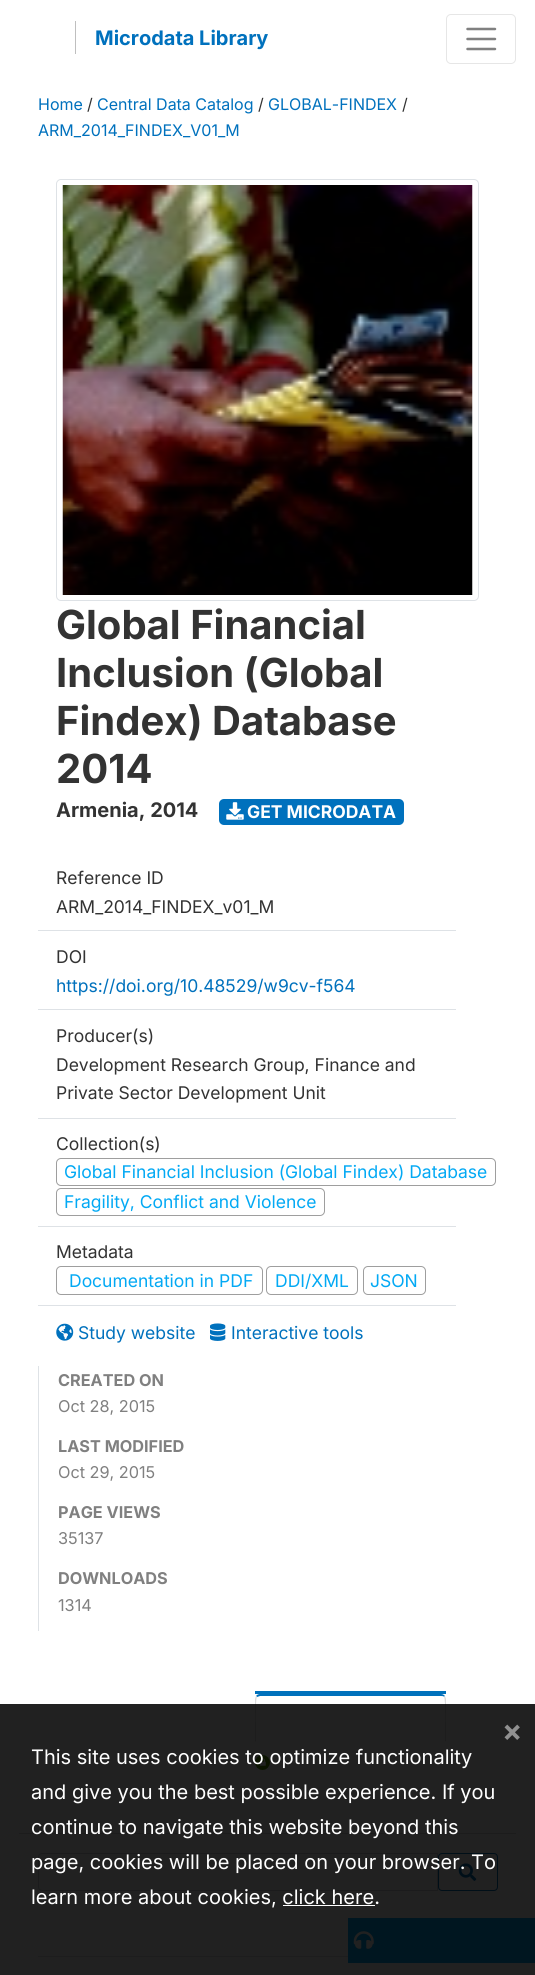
#include <cairo.h>
#include <math.h>
#include <stddef.h>

static cairo_t *ctx;

static void use_color(int r, int g, int b) {
    cairo_set_source_rgb(ctx, r / 255.0, g / 255.0, b / 255.0);
}

static void round_rect(double x, double y, double w, double h, double r) {
    cairo_new_sub_path(ctx);
    cairo_arc(ctx, x + w - r, y + h - r, r, 0, M_PI / 2);
    cairo_arc(ctx, x + r, y + h - r, r, M_PI / 2, M_PI);
    cairo_arc(ctx, x + r, y + r, r, M_PI, 1.5 * M_PI);
    cairo_arc(ctx, x + w - r, y + r, r, 1.5 * M_PI, 2 * M_PI);
    cairo_close_path(ctx);
}

static void picture(const char *path, double x, double y, double w, double h) {
    cairo_surface_t *image = cairo_image_surface_create_from_png(path);
    cairo_save(ctx);
    cairo_set_source_surface(ctx, image, x, y);
    cairo_rectangle(ctx, x, y, w, h);
    cairo_fill(ctx);
    cairo_restore(ctx);
    cairo_surface_destroy(image);
}

int main(void) {
    cairo_surface_t *surface = cairo_image_surface_create(CAIRO_FORMAT_RGB24, 535, 1975);
    ctx = cairo_create(surface);
    cairo_font_options_t *options = cairo_font_options_create();
    cairo_font_options_set_hint_metrics(options, CAIRO_HINT_METRICS_OFF);
    cairo_font_options_set_hint_style(options, CAIRO_HINT_STYLE_NONE);
    cairo_set_font_options(ctx, options);
    cairo_set_miter_limit(ctx, 4);
    use_color(255, 255, 255);
    cairo_paint(ctx);
    use_color(191, 191, 191);
    cairo_rectangle(ctx, 75, 21, 1, 33);
    cairo_fill(ctx);
    cairo_select_font_face(ctx, "Inter", CAIRO_FONT_SLANT_NORMAL, CAIRO_FONT_WEIGHT_BOLD);
    cairo_set_font_size(ctx, 20);
    use_color(0, 113, 189);
    cairo_move_to(ctx, 95, 45);
    cairo_show_text(ctx, "Microdata Library");
    round_rect(446.5, 14.5, 69, 49, 4.5);
    use_color(230, 230, 230);
    cairo_set_line_width(ctx, 1);
    cairo_stroke(ctx);
    cairo_new_path(ctx);
    cairo_move_to(ctx, 467.5, 29);
    cairo_line_to(ctx, 495, 29);
    cairo_move_to(ctx, 467.5, 39);
    cairo_line_to(ctx, 495, 39);
    cairo_move_to(ctx, 467.5, 49);
    cairo_line_to(ctx, 495, 49);
    use_color(128, 128, 128);
    cairo_set_line_width(ctx, 2.5);
    cairo_set_line_cap(ctx, CAIRO_LINE_CAP_ROUND);
    cairo_stroke(ctx);
    cairo_select_font_face(ctx, "Inter", CAIRO_FONT_SLANT_NORMAL, CAIRO_FONT_WEIGHT_NORMAL);
    cairo_set_font_size(ctx, 16);
    use_color(0, 113, 189);
    cairo_move_to(ctx, 38, 110);
    cairo_show_text(ctx, "Home");
    use_color(51, 51, 51);
    cairo_move_to(ctx, 87, 110);
    cairo_show_text(ctx, "/");
    use_color(0, 113, 189);
    cairo_move_to(ctx, 97, 110);
    cairo_show_text(ctx, "Central Data Catalog");
    use_color(51, 51, 51);
    cairo_move_to(ctx, 258, 110);
    cairo_show_text(ctx, "/");
    use_color(0, 113, 189);
    cairo_move_to(ctx, 268, 110);
    cairo_show_text(ctx, "GLOBAL-FINDEX");
    use_color(51, 51, 51);
    cairo_move_to(ctx, 402, 110);
    cairo_show_text(ctx, "/");
    use_color(0, 113, 189);
    cairo_move_to(ctx, 38, 136);
    cairo_show_text(ctx, "ARM_2014_FINDEX_V01_M");
    use_color(220, 220, 220);
    cairo_rectangle(ctx, 19, 1833, 497, 1);
    cairo_fill(ctx);
    round_rect(56.5, 179.5, 422, 421, 4.5);
    use_color(222, 226, 230);
    cairo_set_line_width(ctx, 1);
    cairo_set_line_cap(ctx, CAIRO_LINE_CAP_BUTT);
    cairo_stroke(ctx);
    picture("img1.png", 62, 185, 411, 410);
    cairo_select_font_face(ctx, "Inter", CAIRO_FONT_SLANT_NORMAL, CAIRO_FONT_WEIGHT_BOLD);
    cairo_set_font_size(ctx, 40);
    use_color(51, 51, 51);
    cairo_move_to(ctx, 56, 639);
    cairo_show_text(ctx, "Global Financial");
    cairo_move_to(ctx, 56, 687);
    cairo_show_text(ctx, "Inclusion (Global");
    cairo_move_to(ctx, 56, 735);
    cairo_show_text(ctx, "Findex) Database");
    cairo_move_to(ctx, 56, 783);
    cairo_show_text(ctx, "2014");
    cairo_set_font_size(ctx, 20);
    cairo_move_to(ctx, 56, 817);
    cairo_show_text(ctx, "Armenia, 2014");
    use_color(0, 113, 189);
    round_rect(219, 799, 185, 26, 5);
    cairo_fill(ctx);
    picture("img2.png", 226, 802, 18, 18);
    cairo_set_font_size(ctx, 17.5);
    use_color(255, 255, 255);
    cairo_move_to(ctx, 247, 818);
    cairo_show_text(ctx, "GET MICRODATA");
    use_color(222, 226, 230);
    cairo_rectangle(ctx, 38, 930, 418, 1);
    cairo_fill(ctx);
    cairo_select_font_face(ctx, "Inter", CAIRO_FONT_SLANT_NORMAL, CAIRO_FONT_WEIGHT_NORMAL);
    use_color(51, 51, 51);
    cairo_move_to(ctx, 56, 884);
    cairo_show_text(ctx, "Reference ID");
    cairo_move_to(ctx, 56, 913);
    cairo_show_text(ctx, "ARM_2014_FINDEX_v01_M");
    use_color(222, 226, 230);
    cairo_rectangle(ctx, 38, 1009, 418, 1);
    cairo_fill(ctx);
    use_color(51, 51, 51);
    cairo_move_to(ctx, 56, 963);
    cairo_show_text(ctx, "DOI");
    use_color(0, 113, 189);
    cairo_move_to(ctx, 56, 992);
    cairo_show_text(ctx, "https://doi.org/10.48529/w9cv-f564");
    use_color(222, 226, 230);
    cairo_rectangle(ctx, 38, 1118, 418, 1);
    cairo_fill(ctx);
    use_color(51, 51, 51);
    cairo_move_to(ctx, 56, 1042);
    cairo_show_text(ctx, "Producer(s)");
    cairo_move_to(ctx, 56, 1071);
    cairo_show_text(ctx, "Development Research Group, Finance and");
    cairo_move_to(ctx, 56, 1099);
    cairo_show_text(ctx, "Private Sector Development Unit");
    use_color(222, 226, 230);
    cairo_rectangle(ctx, 38, 1226, 418, 1);
    cairo_fill(ctx);
    use_color(51, 51, 51);
    cairo_move_to(ctx, 56, 1150);
    cairo_show_text(ctx, "Collection(s)");
    round_rect(56.5, 1158.5, 439, 27, 4.5);
    use_color(158, 158, 158);
    cairo_stroke(ctx);
    use_color(3, 169, 244);
    cairo_move_to(ctx, 64, 1178);
    cairo_show_text(ctx, "Global Financial Inclusion (Global Findex) Database");
    round_rect(56.5, 1188.5, 268, 27, 4.5);
    use_color(158, 158, 158);
    cairo_stroke(ctx);
    use_color(3, 169, 244);
    cairo_move_to(ctx, 64, 1208);
    cairo_show_text(ctx, "Fragility, Conflict and Violence");
    use_color(222, 226, 230);
    cairo_rectangle(ctx, 38, 1305, 418, 1);
    cairo_fill(ctx);
    use_color(51, 51, 51);
    cairo_move_to(ctx, 56, 1258);
    cairo_show_text(ctx, "Metadata");
    round_rect(56.5, 1266.5, 206, 28, 4.5);
    use_color(158, 158, 158);
    cairo_stroke(ctx);
    use_color(3, 169, 244);
    cairo_move_to(ctx, 69, 1287);
    cairo_show_text(ctx, "Documentation in PDF");
    round_rect(266.5, 1266.5, 91, 28, 4.5);
    use_color(158, 158, 158);
    cairo_stroke(ctx);
    use_color(3, 169, 244);
    cairo_move_to(ctx, 275, 1287);
    cairo_show_text(ctx, "DDI/XML");
    round_rect(363.5, 1266.5, 62, 28, 4.5);
    use_color(158, 158, 158);
    cairo_stroke(ctx);
    use_color(3, 169, 244);
    cairo_move_to(ctx, 370, 1287);
    cairo_show_text(ctx, "JSON");
    picture("img3.png", 56, 1323, 18, 18);
    use_color(0, 113, 189);
    cairo_move_to(ctx, 78, 1339);
    cairo_show_text(ctx, "Study website");
    picture("img4.png", 210, 1323, 16, 18);
    cairo_move_to(ctx, 231, 1339);
    cairo_show_text(ctx, "Interactive tools");
    use_color(222, 226, 230);
    cairo_rectangle(ctx, 38, 1366, 1, 265);
    cairo_fill(ctx);
    cairo_select_font_face(ctx, "Inter", CAIRO_FONT_SLANT_NORMAL, CAIRO_FONT_WEIGHT_BOLD);
    cairo_set_font_size(ctx, 16.25);
    use_color(128, 128, 128);
    cairo_move_to(ctx, 58, 1386);
    cairo_show_text(ctx, "CREATED ON");
    cairo_select_font_face(ctx, "Inter", CAIRO_FONT_SLANT_NORMAL, CAIRO_FONT_WEIGHT_NORMAL);
    cairo_move_to(ctx, 58, 1412);
    cairo_show_text(ctx, "Oct 28, 2015");
    cairo_select_font_face(ctx, "Inter", CAIRO_FONT_SLANT_NORMAL, CAIRO_FONT_WEIGHT_BOLD);
    cairo_move_to(ctx, 58, 1452);
    cairo_show_text(ctx, "LAST MODIFIED");
    cairo_select_font_face(ctx, "Inter", CAIRO_FONT_SLANT_NORMAL, CAIRO_FONT_WEIGHT_NORMAL);
    cairo_move_to(ctx, 58, 1478);
    cairo_show_text(ctx, "Oct 29, 2015");
    cairo_select_font_face(ctx, "Inter", CAIRO_FONT_SLANT_NORMAL, CAIRO_FONT_WEIGHT_BOLD);
    cairo_move_to(ctx, 58, 1518);
    cairo_show_text(ctx, "PAGE VIEWS");
    cairo_select_font_face(ctx, "Inter", CAIRO_FONT_SLANT_NORMAL, CAIRO_FONT_WEIGHT_NORMAL);
    cairo_move_to(ctx, 58, 1544);
    cairo_show_text(ctx, "35137");
    cairo_select_font_face(ctx, "Inter", CAIRO_FONT_SLANT_NORMAL, CAIRO_FONT_WEIGHT_BOLD);
    cairo_move_to(ctx, 58, 1584);
    cairo_show_text(ctx, "DOWNLOADS");
    cairo_select_font_face(ctx, "Inter", CAIRO_FONT_SLANT_NORMAL, CAIRO_FONT_WEIGHT_NORMAL);
    cairo_move_to(ctx, 58, 1611);
    cairo_show_text(ctx, "1314");
    use_color(0, 113, 188);
    cairo_rectangle(ctx, 255, 1691, 191, 3);
    cairo_fill(ctx);
    cairo_new_path(ctx);
    cairo_move_to(ctx, 260, 1694);
    cairo_curve_to(ctx, 258, 1694, 257, 1695, 256, 1696);
    cairo_line_to(ctx, 257, 1697);
    cairo_line_to(ctx, 260, 1696);
    cairo_line_to(ctx, 441, 1696);
    cairo_curve_to(ctx, 442, 1696, 444, 1696, 444, 1697);
    cairo_line_to(ctx, 445, 1696);
    cairo_curve_to(ctx, 444, 1695, 443, 1694, 441, 1694);
    cairo_close_path(ctx);
    cairo_fill(ctx);
    use_color(220, 220, 220);
    cairo_new_path(ctx);
    cairo_move_to(ctx, 445, 1741);
    cairo_line_to(ctx, 446, 1742);
    cairo_line_to(ctx, 446, 1699);
    cairo_line_to(ctx, 445, 1696);
    cairo_line_to(ctx, 444, 1697);
    cairo_curve_to(ctx, 446, 1699, 445, 1736, 445, 1741);
    cairo_close_path(ctx);
    cairo_fill(ctx);
    use_color(255, 255, 255);
    cairo_new_path(ctx);
    cairo_move_to(ctx, 446, 1742);
    cairo_line_to(ctx, 256, 1742);
    cairo_line_to(ctx, 256, 1741);
    cairo_line_to(ctx, 445, 1741);
    cairo_close_path(ctx);
    cairo_fill(ctx);
    use_color(220, 220, 220);
    cairo_new_path(ctx);
    cairo_move_to(ctx, 255, 1699);
    cairo_line_to(ctx, 255, 1742);
    cairo_line_to(ctx, 256, 1741);
    cairo_curve_to(ctx, 256, 1736, 255, 1699, 257, 1697);
    cairo_line_to(ctx, 256, 1696);
    cairo_close_path(ctx);
    cairo_fill(ctx);
    picture("img5.png", 255, 1755, 15, 15);
    cairo_new_path(ctx);
    cairo_move_to(ctx, 42, 1853.5);
    cairo_line_to(ctx, 437.5, 1853.5);
    cairo_line_to(ctx, 437.5, 1890.5);
    cairo_line_to(ctx, 42, 1890.5);
    cairo_curve_to(ctx, 40, 1890.5, 38.5, 1889, 38.5, 1887);
    cairo_line_to(ctx, 38.5, 1857);
    cairo_curve_to(ctx, 38.5, 1855, 40, 1853.5, 42, 1853.5);
    cairo_close_path(ctx);
    use_color(206, 212, 218);
    cairo_stroke(ctx);
    round_rect(438.5, 1853.5, 59, 37, 3.5);
    use_color(0, 113, 189);
    cairo_stroke(ctx);
    picture("img6.png", 458, 1863, 19, 18);
    use_color(221, 221, 221);
    cairo_rectangle(ctx, 38, 1956, 310, 1);
    cairo_fill(ctx);
    use_color(3, 169, 244);
    cairo_rectangle(ctx, 348, 1918, 187, 45);
    cairo_fill(ctx);
    picture("img7.png", 353, 1931, 21, 18);
    cairo_set_source_rgba(ctx, 0, 0, 0, 0.87);
    cairo_rectangle(ctx, 0, 1704, 535, 271);
    cairo_fill(ctx);
    cairo_select_font_face(ctx, "Inter", CAIRO_FONT_SLANT_NORMAL, CAIRO_FONT_WEIGHT_BOLD);
    cairo_set_font_size(ctx, 30);
    use_color(144, 144, 144);
    cairo_move_to(ctx, 502, 1741);
    cairo_show_text(ctx, "×");
    cairo_select_font_face(ctx, "Inter", CAIRO_FONT_SLANT_NORMAL, CAIRO_FONT_WEIGHT_NORMAL);
    cairo_set_font_size(ctx, 20);
    use_color(255, 255, 255);
    cairo_move_to(ctx, 31, 1764);
    cairo_show_text(ctx, "This site uses cookies to optimize functionality");
    cairo_move_to(ctx, 31, 1799);
    cairo_show_text(ctx, "and give you the best possible experience. If you");
    cairo_move_to(ctx, 31, 1834);
    cairo_show_text(ctx, "continue to navigate this website beyond this");
    cairo_move_to(ctx, 31, 1869);
    cairo_show_text(ctx, "page, cookies will be placed on your browser. To");
    cairo_move_to(ctx, 31, 1904);
    cairo_show_text(ctx, "learn more about cookies, click here.");
    cairo_rectangle(ctx, 283, 1905, 92, 1);
    cairo_fill(ctx);
    cairo_surface_write_to_png(surface, "result.png");
    cairo_font_options_destroy(options);
    cairo_destroy(ctx);
    cairo_surface_destroy(surface);
    return 0;
}
